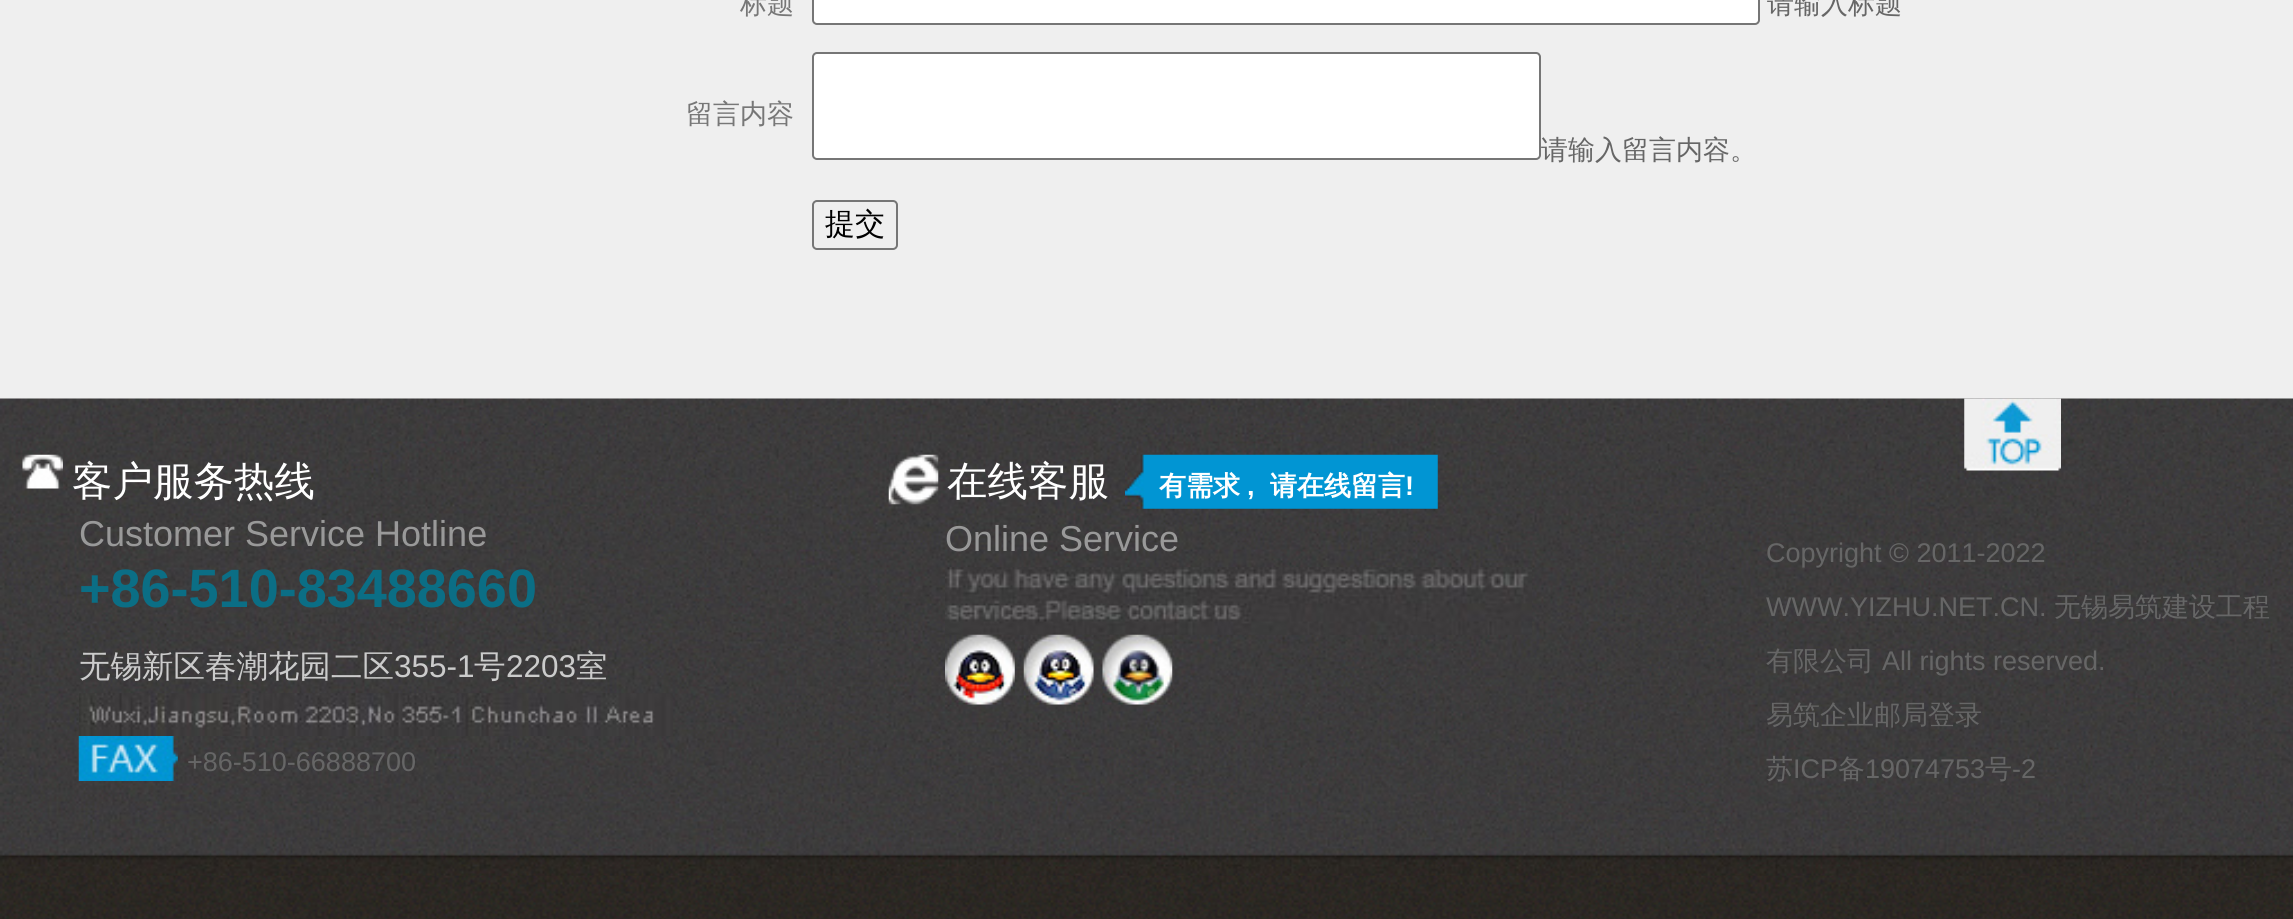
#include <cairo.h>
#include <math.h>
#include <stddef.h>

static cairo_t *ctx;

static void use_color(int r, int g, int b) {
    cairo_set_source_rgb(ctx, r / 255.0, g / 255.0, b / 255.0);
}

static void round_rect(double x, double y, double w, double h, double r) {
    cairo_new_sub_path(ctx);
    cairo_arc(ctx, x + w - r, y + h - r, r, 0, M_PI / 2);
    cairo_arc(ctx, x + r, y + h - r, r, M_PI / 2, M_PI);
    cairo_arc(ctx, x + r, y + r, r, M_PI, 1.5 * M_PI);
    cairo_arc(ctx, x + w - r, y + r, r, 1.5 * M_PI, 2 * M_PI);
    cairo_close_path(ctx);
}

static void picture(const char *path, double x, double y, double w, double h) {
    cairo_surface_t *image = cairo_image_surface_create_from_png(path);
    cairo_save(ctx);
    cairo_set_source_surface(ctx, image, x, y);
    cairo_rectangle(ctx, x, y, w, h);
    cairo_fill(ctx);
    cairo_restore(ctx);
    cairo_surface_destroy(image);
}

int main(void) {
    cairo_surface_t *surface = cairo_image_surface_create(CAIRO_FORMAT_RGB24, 2293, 919);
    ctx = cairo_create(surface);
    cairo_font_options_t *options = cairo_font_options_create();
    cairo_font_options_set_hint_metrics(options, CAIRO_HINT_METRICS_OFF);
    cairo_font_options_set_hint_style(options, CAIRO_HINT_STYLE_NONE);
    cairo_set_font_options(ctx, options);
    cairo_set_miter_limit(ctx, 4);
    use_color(255, 255, 255);
    cairo_paint(ctx);
    picture("img1.png", 0, 875, 2293, 44);
    use_color(239, 239, 239);
    cairo_rectangle(ctx, 0, 0, 2293, 399);
    cairo_fill(ctx);
    cairo_select_font_face(ctx, "WenQuanYi Zen Hei Medium", CAIRO_FONT_SLANT_NORMAL, CAIRO_FONT_WEIGHT_NORMAL);
    cairo_set_font_size(ctx, 27);
    use_color(119, 119, 119);
    cairo_move_to(ctx, 740, 13);
    cairo_show_text(ctx, "标题");
    use_color(255, 255, 255);
    round_rect(813, -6, 946, 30, 4);
    cairo_fill_preserve(ctx);
    use_color(118, 118, 118);
    cairo_stroke(ctx);
    use_color(102, 102, 102);
    cairo_move_to(ctx, 1767, 13);
    cairo_show_text(ctx, "请输入标题");
    use_color(119, 119, 119);
    cairo_move_to(ctx, 686, 123);
    cairo_show_text(ctx, "留言内容");
    use_color(255, 255, 255);
    round_rect(813, 53, 727, 106, 4);
    cairo_fill_preserve(ctx);
    use_color(118, 118, 118);
    cairo_stroke(ctx);
    use_color(102, 102, 102);
    cairo_move_to(ctx, 1541, 159);
    cairo_show_text(ctx, "请输入留言内容。");
    round_rect(813, 201, 84, 48, 4);
    use_color(118, 118, 118);
    cairo_stroke(ctx);
    cairo_set_font_size(ctx, 30);
    use_color(0, 0, 0);
    cairo_move_to(ctx, 825, 234);
    cairo_show_text(ctx, "提交");
    picture("img2.png", 0, 398, 2293, 478);
    picture("img3.png", 22, 454, 41, 35);
    cairo_set_font_size(ctx, 40.5);
    use_color(255, 255, 255);
    cairo_move_to(ctx, 72, 495);
    cairo_show_text(ctx, "客户服务热线");
    cairo_select_font_face(ctx, "Liberation Sans", CAIRO_FONT_SLANT_NORMAL, CAIRO_FONT_WEIGHT_NORMAL);
    cairo_set_font_size(ctx, 36);
    use_color(153, 153, 153);
    cairo_move_to(ctx, 79, 546);
    cairo_show_text(ctx, "Customer Service Hotline");
    cairo_select_font_face(ctx, "Liberation Sans", CAIRO_FONT_SLANT_NORMAL, CAIRO_FONT_WEIGHT_BOLD);
    cairo_set_font_size(ctx, 54);
    use_color(11, 110, 133);
    cairo_move_to(ctx, 79, 607);
    cairo_show_text(ctx, "+86-510-83488660");
    cairo_select_font_face(ctx, "WenQuanYi Zen Hei Medium", CAIRO_FONT_SLANT_NORMAL, CAIRO_FONT_WEIGHT_NORMAL);
    cairo_set_font_size(ctx, 31.5);
    use_color(203, 203, 203);
    cairo_move_to(ctx, 79, 677);
    cairo_show_text(ctx, "无锡新区春潮花园二区");
    cairo_select_font_face(ctx, "Liberation Sans", CAIRO_FONT_SLANT_NORMAL, CAIRO_FONT_WEIGHT_NORMAL);
    cairo_move_to(ctx, 394, 677);
    cairo_show_text(ctx, "355-1");
    cairo_select_font_face(ctx, "WenQuanYi Zen Hei Medium", CAIRO_FONT_SLANT_NORMAL, CAIRO_FONT_WEIGHT_NORMAL);
    cairo_move_to(ctx, 474, 677);
    cairo_show_text(ctx, "号");
    cairo_select_font_face(ctx, "Liberation Sans", CAIRO_FONT_SLANT_NORMAL, CAIRO_FONT_WEIGHT_NORMAL);
    cairo_move_to(ctx, 506, 677);
    cairo_show_text(ctx, "2203");
    cairo_select_font_face(ctx, "WenQuanYi Zen Hei Medium", CAIRO_FONT_SLANT_NORMAL, CAIRO_FONT_WEIGHT_NORMAL);
    cairo_move_to(ctx, 576, 677);
    cairo_show_text(ctx, "室");
    picture("img4.png", 79, 693, 594, 43);
    picture("img5.png", 78, 736, 100, 45);
    cairo_select_font_face(ctx, "Liberation Sans", CAIRO_FONT_SLANT_NORMAL, CAIRO_FONT_WEIGHT_NORMAL);
    cairo_set_font_size(ctx, 27);
    use_color(102, 102, 102);
    cairo_move_to(ctx, 187, 771);
    cairo_show_text(ctx, "+86-510-66888700");
    picture("img6.png", 1125, 454, 313, 55);
    picture("img7.png", 888, 454, 51, 51);
    cairo_select_font_face(ctx, "WenQuanYi Zen Hei Medium", CAIRO_FONT_SLANT_NORMAL, CAIRO_FONT_WEIGHT_NORMAL);
    cairo_set_font_size(ctx, 40.5);
    use_color(255, 255, 255);
    cairo_move_to(ctx, 947, 495);
    cairo_show_text(ctx, "在线客服");
    cairo_select_font_face(ctx, "WenQuanYi Zen Hei", CAIRO_FONT_SLANT_NORMAL, CAIRO_FONT_WEIGHT_BOLD);
    cairo_set_font_size(ctx, 27);
    cairo_move_to(ctx, 1159, 495);
    cairo_show_text(ctx, "有需求");
    cairo_select_font_face(ctx, "Liberation Sans", CAIRO_FONT_SLANT_NORMAL, CAIRO_FONT_WEIGHT_BOLD);
    cairo_move_to(ctx, 1247, 495);
    cairo_show_text(ctx, ",");
    cairo_select_font_face(ctx, "WenQuanYi Zen Hei", CAIRO_FONT_SLANT_NORMAL, CAIRO_FONT_WEIGHT_BOLD);
    cairo_move_to(ctx, 1270, 495);
    cairo_show_text(ctx, "请在线留言");
    cairo_select_font_face(ctx, "Liberation Sans", CAIRO_FONT_SLANT_NORMAL, CAIRO_FONT_WEIGHT_BOLD);
    cairo_move_to(ctx, 1405, 495);
    cairo_show_text(ctx, "!");
    cairo_select_font_face(ctx, "Liberation Sans", CAIRO_FONT_SLANT_NORMAL, CAIRO_FONT_WEIGHT_NORMAL);
    cairo_set_font_size(ctx, 36);
    use_color(153, 153, 153);
    cairo_move_to(ctx, 945, 551);
    cairo_show_text(ctx, "Online Service");
    picture("img8.png", 945, 567, 587, 68);
    picture("img9.png", 945, 634, 70, 71);
    picture("img10.png", 1023, 634, 71, 71);
    picture("img11.png", 1102, 634, 71, 71);
    picture("img12.png", 1964, 398, 97, 73);
    cairo_set_font_size(ctx, 27);
    use_color(102, 102, 102);
    cairo_move_to(ctx, 1766, 562);
    cairo_show_text(ctx, "Copyright © 2011-2022");
    cairo_move_to(ctx, 1766, 616);
    cairo_show_text(ctx, "WWW.YIZHU.NET.CN.");
    cairo_select_font_face(ctx, "WenQuanYi Zen Hei Medium", CAIRO_FONT_SLANT_NORMAL, CAIRO_FONT_WEIGHT_NORMAL);
    cairo_move_to(ctx, 2054, 616);
    cairo_show_text(ctx, "无锡易筑建设工程");
    cairo_move_to(ctx, 1766, 670);
    cairo_show_text(ctx, "有限公司");
    cairo_select_font_face(ctx, "Liberation Sans", CAIRO_FONT_SLANT_NORMAL, CAIRO_FONT_WEIGHT_NORMAL);
    cairo_move_to(ctx, 1882, 670);
    cairo_show_text(ctx, "All rights reserved.");
    cairo_select_font_face(ctx, "WenQuanYi Zen Hei Medium", CAIRO_FONT_SLANT_NORMAL, CAIRO_FONT_WEIGHT_NORMAL);
    cairo_move_to(ctx, 1766, 724);
    cairo_show_text(ctx, "易筑企业邮局登录");
    cairo_move_to(ctx, 1766, 778);
    cairo_show_text(ctx, "苏");
    cairo_select_font_face(ctx, "Liberation Sans", CAIRO_FONT_SLANT_NORMAL, CAIRO_FONT_WEIGHT_NORMAL);
    cairo_move_to(ctx, 1793, 778);
    cairo_show_text(ctx, "ICP");
    cairo_select_font_face(ctx, "WenQuanYi Zen Hei Medium", CAIRO_FONT_SLANT_NORMAL, CAIRO_FONT_WEIGHT_NORMAL);
    cairo_move_to(ctx, 1838, 778);
    cairo_show_text(ctx, "备");
    cairo_select_font_face(ctx, "Liberation Sans", CAIRO_FONT_SLANT_NORMAL, CAIRO_FONT_WEIGHT_NORMAL);
    cairo_move_to(ctx, 1865, 778);
    cairo_show_text(ctx, "19074753");
    cairo_select_font_face(ctx, "WenQuanYi Zen Hei Medium", CAIRO_FONT_SLANT_NORMAL, CAIRO_FONT_WEIGHT_NORMAL);
    cairo_move_to(ctx, 1985, 778);
    cairo_show_text(ctx, "号");
    cairo_select_font_face(ctx, "Liberation Sans", CAIRO_FONT_SLANT_NORMAL, CAIRO_FONT_WEIGHT_NORMAL);
    cairo_move_to(ctx, 2012, 778);
    cairo_show_text(ctx, "-2");
    cairo_surface_write_to_png(surface, "result.png");
    cairo_font_options_destroy(options);
    cairo_destroy(ctx);
    cairo_surface_destroy(surface);
    return 0;
}
